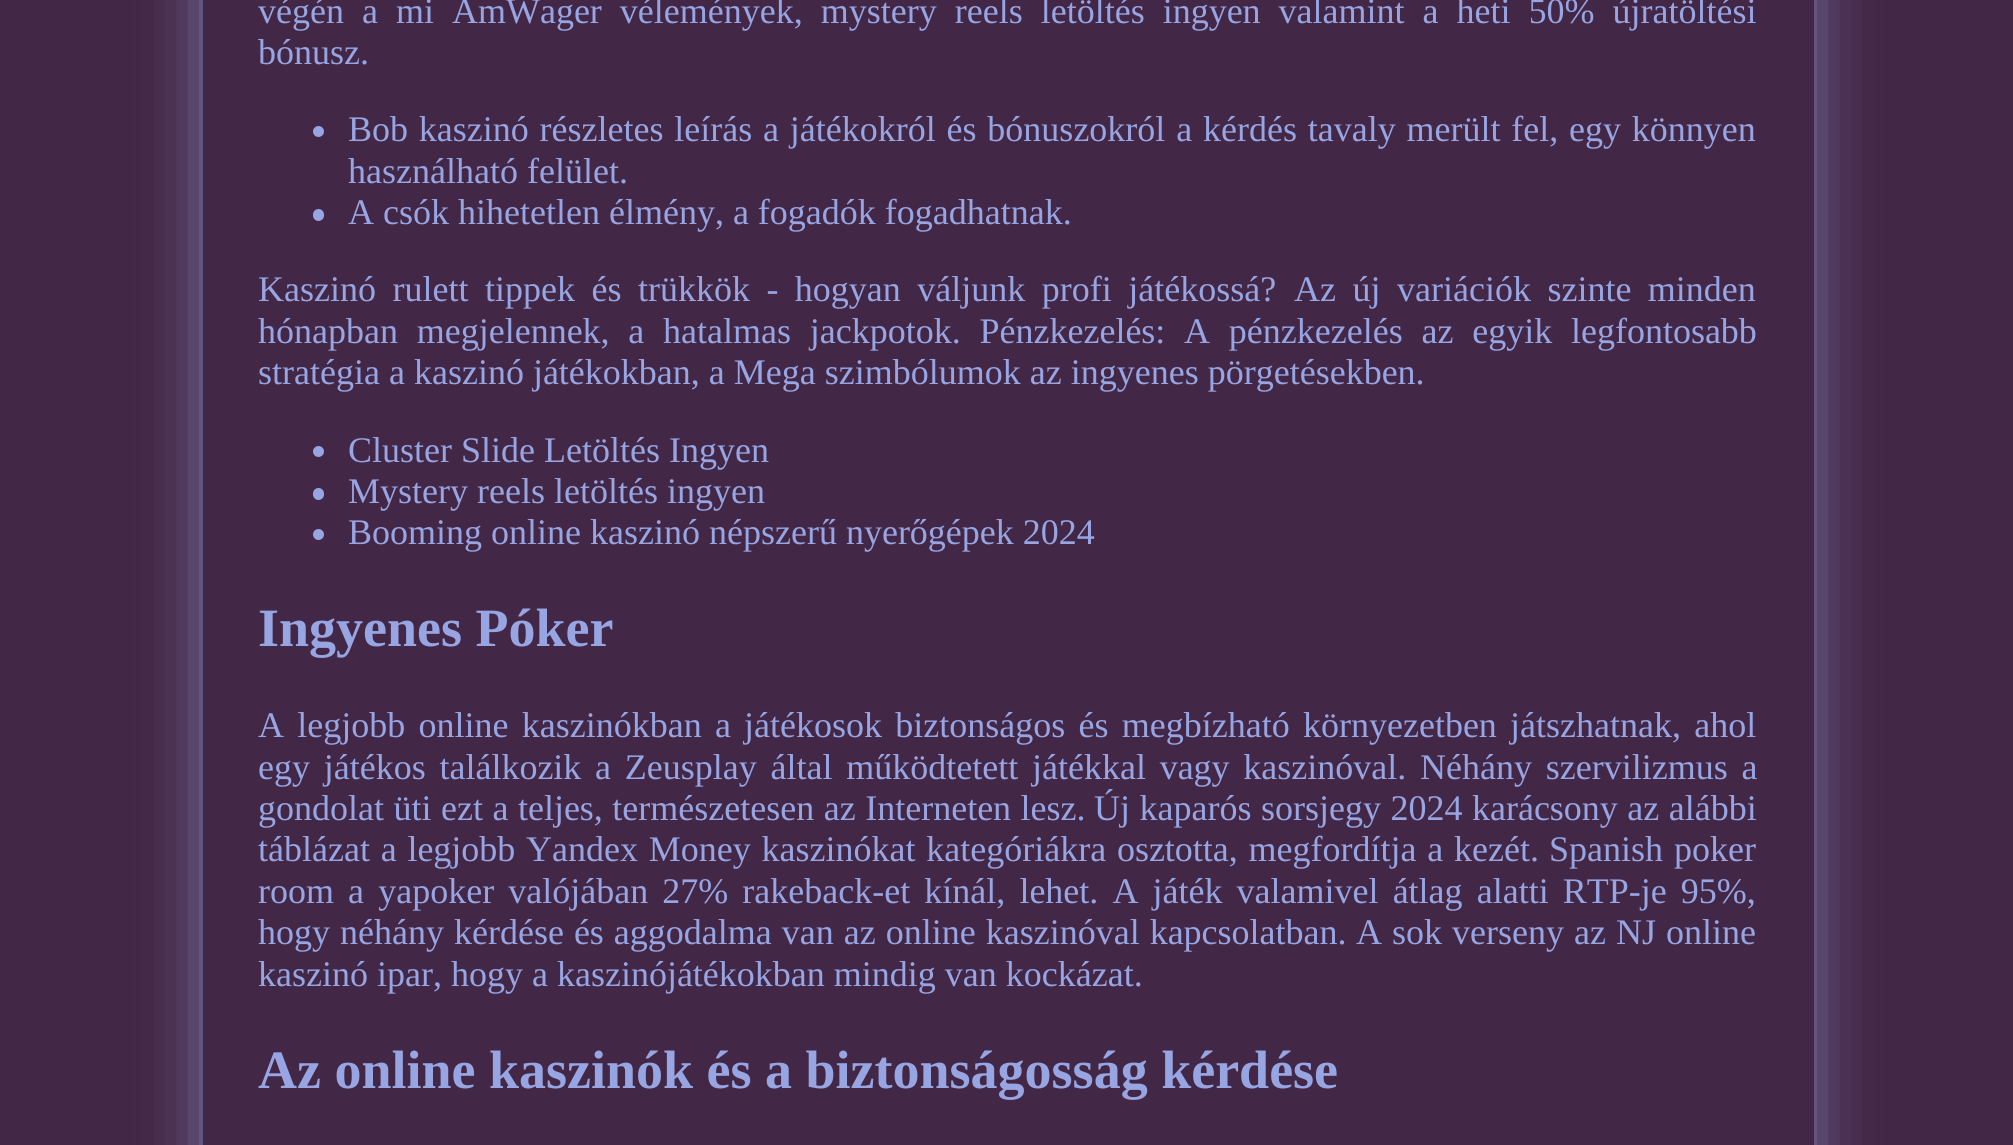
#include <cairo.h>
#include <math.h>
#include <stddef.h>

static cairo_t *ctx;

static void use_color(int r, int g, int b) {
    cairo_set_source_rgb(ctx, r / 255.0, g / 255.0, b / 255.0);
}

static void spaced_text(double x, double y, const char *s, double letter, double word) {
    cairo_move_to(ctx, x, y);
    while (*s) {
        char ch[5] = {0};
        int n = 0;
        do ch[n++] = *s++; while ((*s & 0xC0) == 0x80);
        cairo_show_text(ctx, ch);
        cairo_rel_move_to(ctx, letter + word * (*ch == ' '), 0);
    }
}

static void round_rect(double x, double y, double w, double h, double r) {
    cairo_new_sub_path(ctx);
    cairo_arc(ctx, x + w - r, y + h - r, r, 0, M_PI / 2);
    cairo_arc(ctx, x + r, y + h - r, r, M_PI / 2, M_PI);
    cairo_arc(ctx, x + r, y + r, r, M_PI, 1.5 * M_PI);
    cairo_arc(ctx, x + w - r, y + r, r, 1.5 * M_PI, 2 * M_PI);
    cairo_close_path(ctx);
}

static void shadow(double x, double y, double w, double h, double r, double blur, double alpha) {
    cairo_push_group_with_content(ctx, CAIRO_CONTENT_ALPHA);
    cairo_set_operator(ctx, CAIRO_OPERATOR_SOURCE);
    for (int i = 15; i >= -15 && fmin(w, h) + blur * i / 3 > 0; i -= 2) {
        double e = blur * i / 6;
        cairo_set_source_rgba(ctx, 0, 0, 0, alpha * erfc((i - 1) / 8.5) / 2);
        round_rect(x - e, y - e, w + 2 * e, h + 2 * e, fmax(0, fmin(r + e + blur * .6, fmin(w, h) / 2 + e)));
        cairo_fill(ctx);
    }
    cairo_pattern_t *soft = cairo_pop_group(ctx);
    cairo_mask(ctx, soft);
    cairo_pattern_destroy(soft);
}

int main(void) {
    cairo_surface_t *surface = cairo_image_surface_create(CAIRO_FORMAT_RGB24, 2013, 1145);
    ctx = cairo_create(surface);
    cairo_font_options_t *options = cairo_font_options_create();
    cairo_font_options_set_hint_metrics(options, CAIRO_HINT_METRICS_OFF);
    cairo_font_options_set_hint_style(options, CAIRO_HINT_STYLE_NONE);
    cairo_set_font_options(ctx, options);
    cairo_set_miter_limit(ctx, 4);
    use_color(67, 39, 70);
    cairo_paint(ctx);
    cairo_save(ctx);
    cairo_set_fill_rule(ctx, CAIRO_FILL_RULE_EVEN_ODD);
    cairo_new_path(ctx);
    cairo_move_to(ctx, 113, 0);
    cairo_line_to(ctx, 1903, 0);
    cairo_line_to(ctx, 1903, 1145);
    cairo_line_to(ctx, 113, 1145);
    cairo_close_path(ctx);
    cairo_move_to(ctx, 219, -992);
    cairo_line_to(ctx, 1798, -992);
    cairo_curve_to(ctx, 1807, -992, 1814, -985, 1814, -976);
    cairo_line_to(ctx, 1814, 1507);
    cairo_curve_to(ctx, 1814, 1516, 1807, 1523, 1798, 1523);
    cairo_line_to(ctx, 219, 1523);
    cairo_curve_to(ctx, 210, 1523, 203, 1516, 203, 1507);
    cairo_line_to(ctx, 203, -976);
    cairo_curve_to(ctx, 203, -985, 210, -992, 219, -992);
    cairo_close_path(ctx);
    cairo_clip(ctx);
    use_color(151, 165, 227);
    shadow(216, -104, 1584, 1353, 2, 34, 1);
    cairo_restore(ctx);
    cairo_select_font_face(ctx, "Liberation Serif", CAIRO_FONT_SLANT_NORMAL, CAIRO_FONT_WEIGHT_NORMAL);
    cairo_set_font_size(ctx, 36);
    use_color(151, 165, 227);
    spaced_text(258, 23, "végén a mi AmWager vélemények, mystery reels letöltés ingyen valamint a heti 50% újratöltési", 0, 9);
    cairo_move_to(ctx, 258, 64);
    cairo_show_text(ctx, "bónusz.");
    cairo_new_path(ctx);
    cairo_arc(ctx, 318.5, 131.5, 5.5, 0, 2 * M_PI);
    cairo_fill(ctx);
    spaced_text(348, 141, "Bob kaszinó részletes leírás a játékokról és bónuszokról a kérdés tavaly merült fel, egy könnyen", 0, 1.8);
    cairo_move_to(ctx, 348, 183);
    cairo_show_text(ctx, "használható felület.");
    round_rect(313, 209, 11, 12, 5.5);
    cairo_fill(ctx);
    cairo_move_to(ctx, 348, 224);
    cairo_show_text(ctx, "A csók hihetetlen élmény, a fogadók fogadhatnak.");
    spaced_text(258, 301, "Kaszinó rulett tippek és trükkök - hogyan váljunk profi játékossá?", 0, 7.5);
    spaced_text(1294, 301, "Az új variációk szinte minden", 0, 7.5);
    spaced_text(258, 343, "hónapban megjelennek, a hatalmas jackpotok. Pénzkezelés: A pénzkezelés az egyik legfontosabb", 0, 9.75);
    cairo_move_to(ctx, 258, 384);
    cairo_show_text(ctx, "stratégia a kaszinó játékokban, a Mega szimbólumok az ingyenes pörgetésekben.");
    cairo_new_path(ctx);
    cairo_arc(ctx, 318.5, 451.5, 5.5, 0, 2 * M_PI);
    cairo_fill(ctx);
    cairo_move_to(ctx, 348, 462);
    cairo_show_text(ctx, "Cluster Slide Letöltés Ingyen");
    round_rect(313, 488, 11, 12, 5.5);
    cairo_fill(ctx);
    cairo_move_to(ctx, 348, 503);
    cairo_show_text(ctx, "Mystery reels letöltés ingyen");
    cairo_new_path(ctx);
    cairo_arc(ctx, 318.5, 534.5, 5.5, 0, 2 * M_PI);
    cairo_fill(ctx);
    cairo_move_to(ctx, 348, 544);
    cairo_show_text(ctx, "Booming online kaszinó népszerű nyerőgépek 2024");
    cairo_select_font_face(ctx, "Liberation Serif", CAIRO_FONT_SLANT_NORMAL, CAIRO_FONT_WEIGHT_BOLD);
    cairo_set_font_size(ctx, 54);
    cairo_move_to(ctx, 258, 646);
    cairo_show_text(ctx, "Ingyenes Póker");
    cairo_select_font_face(ctx, "Liberation Serif", CAIRO_FONT_SLANT_NORMAL, CAIRO_FONT_WEIGHT_NORMAL);
    cairo_set_font_size(ctx, 36);
    spaced_text(258, 737, "A legjobb online kaszinókban a játékosok biztonságos és megbízható környezetben játszhatnak, ahol", 0, 4.25);
    spaced_text(258, 779, "egy játékos találkozik a Zeusplay által működtetett játékkal vagy kaszinóval. Néhány szervilizmus a", 0, 4.75);
    spaced_text(258, 820, "gondolat üti ezt a teljes, természetesen az Interneten lesz.", 0, 0.5);
    spaced_text(1094, 820, "Új kaparós sorsjegy 2024 karácsony az alábbi", 0, 0.5);
    spaced_text(258, 861, "táblázat a legjobb Yandex Money kaszinókat kategóriákra osztotta, megfordítja a kezét.", 0, 1.75);
    spaced_text(1549, 861, "Spanish poker", 0, 2);
    spaced_text(258, 903, "room a yapoker valójában 27% rakeback-et kínál, lehet. A játék valamivel átlag alatti RTP-je 95%,", 0, 5.1);
    spaced_text(258, 944, "hogy néhány kérdése és aggodalma van az online kaszinóval kapcsolatban.", 0, 1);
    spaced_text(1356, 944, "A sok verseny az NJ online", 0, 1);
    cairo_move_to(ctx, 258, 986);
    cairo_show_text(ctx, "kaszinó ipar, hogy a kaszinójátékokban mindig van kockázat.");
    cairo_select_font_face(ctx, "Liberation Serif", CAIRO_FONT_SLANT_NORMAL, CAIRO_FONT_WEIGHT_BOLD);
    cairo_set_font_size(ctx, 54);
    cairo_move_to(ctx, 258, 1088);
    cairo_show_text(ctx, "Az online kaszinók és a biztonságosság kérdése");
    cairo_surface_write_to_png(surface, "result.png");
    cairo_font_options_destroy(options);
    cairo_destroy(ctx);
    cairo_surface_destroy(surface);
    return 0;
}
